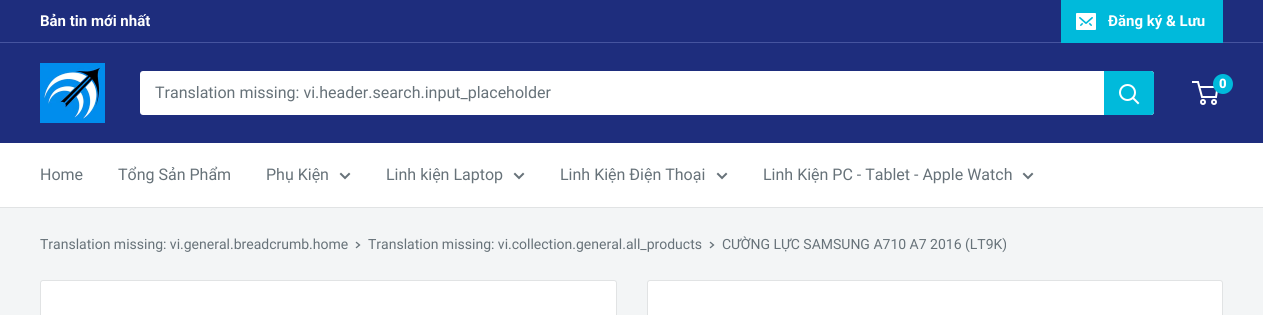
#include <cairo.h>
#include <math.h>
#include <stddef.h>

static cairo_t *ctx;

static void use_color(int r, int g, int b) {
    cairo_set_source_rgb(ctx, r / 255.0, g / 255.0, b / 255.0);
}

static void round_rect(double x, double y, double w, double h, double r) {
    cairo_new_sub_path(ctx);
    cairo_arc(ctx, x + w - r, y + h - r, r, 0, M_PI / 2);
    cairo_arc(ctx, x + r, y + h - r, r, M_PI / 2, M_PI);
    cairo_arc(ctx, x + r, y + r, r, M_PI, 1.5 * M_PI);
    cairo_arc(ctx, x + w - r, y + r, r, 1.5 * M_PI, 2 * M_PI);
    cairo_close_path(ctx);
}

static void picture(const char *path, double x, double y, double w, double h) {
    cairo_surface_t *image = cairo_image_surface_create_from_png(path);
    cairo_save(ctx);
    cairo_set_source_surface(ctx, image, x, y);
    cairo_rectangle(ctx, x, y, w, h);
    cairo_fill(ctx);
    cairo_restore(ctx);
    cairo_surface_destroy(image);
}

int main(void) {
    cairo_surface_t *surface = cairo_image_surface_create(CAIRO_FORMAT_RGB24, 1263, 315);
    ctx = cairo_create(surface);
    cairo_font_options_t *options = cairo_font_options_create();
    cairo_font_options_set_hint_metrics(options, CAIRO_HINT_METRICS_OFF);
    cairo_font_options_set_hint_style(options, CAIRO_HINT_STYLE_NONE);
    cairo_set_font_options(ctx, options);
    cairo_set_miter_limit(ctx, 4);
    use_color(243, 245, 246);
    cairo_paint(ctx);
    use_color(30, 45, 125);
    cairo_rectangle(ctx, 0, 0, 1263, 42);
    cairo_fill(ctx);
    use_color(70, 84, 159);
    cairo_rectangle(ctx, 0, 42, 1263, 1);
    cairo_fill(ctx);
    cairo_select_font_face(ctx, "Roboto", CAIRO_FONT_SLANT_NORMAL, CAIRO_FONT_WEIGHT_BOLD);
    cairo_set_font_size(ctx, 15);
    use_color(255, 255, 255);
    cairo_move_to(ctx, 40, 26);
    cairo_show_text(ctx, "Bản tin mới nhất");
    use_color(0, 186, 219);
    cairo_rectangle(ctx, 1061, 0, 162, 43);
    cairo_fill(ctx);
    picture("img1.png", 1076, 13, 20, 17);
    use_color(255, 255, 255);
    cairo_move_to(ctx, 1108, 26);
    cairo_show_text(ctx, "Đăng ký & Lưu");
    use_color(30, 45, 125);
    cairo_rectangle(ctx, 0, 43, 1263, 100);
    cairo_fill(ctx);
    picture("img2.png", 40, 63, 65, 60);
    cairo_arc(ctx, 1203, 102, 2, 0, 2 * M_PI);
    use_color(255, 255, 255);
    cairo_stroke(ctx);
    cairo_arc(ctx, 1214, 102, 2, 0, 2 * M_PI);
    cairo_stroke(ctx);
    cairo_new_path(ctx);
    cairo_move_to(ctx, 1199.5, 87);
    cairo_line_to(ctx, 1217.5, 87);
    cairo_line_to(ctx, 1216, 97);
    cairo_line_to(ctx, 1202, 97);
    cairo_line_to(ctx, 1198, 82);
    cairo_line_to(ctx, 1192, 82);
    cairo_stroke(ctx);
    use_color(0, 186, 219);
    cairo_arc(ctx, 1223, 84, 10, 0, 2 * M_PI);
    cairo_fill(ctx);
    cairo_select_font_face(ctx, "Roboto Black", CAIRO_FONT_SLANT_NORMAL, CAIRO_FONT_WEIGHT_NORMAL);
    cairo_set_font_size(ctx, 13);
    use_color(255, 255, 255);
    cairo_move_to(ctx, 1219, 88);
    cairo_show_text(ctx, "0");
    round_rect(140, 71, 1014, 44, 3);
    cairo_fill(ctx);
    cairo_select_font_face(ctx, "Roboto", CAIRO_FONT_SLANT_NORMAL, CAIRO_FONT_WEIGHT_NORMAL);
    cairo_set_font_size(ctx, 16);
    use_color(103, 114, 121);
    cairo_move_to(ctx, 155, 98);
    cairo_show_text(ctx, "Translation missing: vi.header.search.input_placeholder");
    use_color(0, 186, 219);
    cairo_new_path(ctx);
    cairo_move_to(ctx, 1104, 71);
    cairo_line_to(ctx, 1151, 71);
    cairo_curve_to(ctx, 1152.5, 71, 1154, 72.5, 1154, 74);
    cairo_line_to(ctx, 1154, 112);
    cairo_curve_to(ctx, 1154, 113.5, 1152.5, 115, 1151, 115);
    cairo_line_to(ctx, 1104, 115);
    cairo_close_path(ctx);
    cairo_fill(ctx);
    cairo_new_path(ctx);
    cairo_move_to(ctx, 1138, 103);
    cairo_line_to(ctx, 1133, 98);
    use_color(255, 255, 255);
    cairo_set_line_cap(ctx, CAIRO_LINE_CAP_SQUARE);
    cairo_stroke(ctx);
    cairo_arc(ctx, 1127.5, 92.5, 7.5, 0, 2 * M_PI);
    cairo_set_line_cap(ctx, CAIRO_LINE_CAP_BUTT);
    cairo_stroke(ctx);
    cairo_rectangle(ctx, 0, 143, 1263, 64);
    cairo_fill(ctx);
    use_color(225, 227, 228);
    cairo_rectangle(ctx, 0, 207, 1263, 1);
    cairo_fill(ctx);
    use_color(103, 114, 121);
    cairo_move_to(ctx, 40, 180);
    cairo_show_text(ctx, "Home");
    cairo_move_to(ctx, 118, 180);
    cairo_show_text(ctx, "Tổng Sản Phẩm");
    cairo_move_to(ctx, 266, 180);
    cairo_show_text(ctx, "Phụ Kiện");
    cairo_new_path(ctx);
    cairo_move_to(ctx, 349, 174);
    cairo_line_to(ctx, 345, 178);
    cairo_line_to(ctx, 341, 174);
    cairo_set_line_cap(ctx, CAIRO_LINE_CAP_SQUARE);
    cairo_stroke(ctx);
    cairo_move_to(ctx, 386, 180);
    cairo_show_text(ctx, "Linh kiện Laptop");
    cairo_new_path(ctx);
    cairo_move_to(ctx, 523, 174);
    cairo_line_to(ctx, 519, 178);
    cairo_line_to(ctx, 515, 174);
    cairo_stroke(ctx);
    cairo_move_to(ctx, 560, 180);
    cairo_show_text(ctx, "Linh Kiện Điện Thoại");
    cairo_new_path(ctx);
    cairo_move_to(ctx, 726, 174);
    cairo_line_to(ctx, 722, 178);
    cairo_line_to(ctx, 718, 174);
    cairo_stroke(ctx);
    cairo_move_to(ctx, 763, 180);
    cairo_show_text(ctx, "Linh Kiện PC - Tablet - Apple Watch");
    cairo_new_path(ctx);
    cairo_move_to(ctx, 1032, 174);
    cairo_line_to(ctx, 1028, 178);
    cairo_line_to(ctx, 1024, 174);
    cairo_stroke(ctx);
    cairo_set_font_size(ctx, 14);
    cairo_move_to(ctx, 40, 249);
    cairo_show_text(ctx, "Translation missing: vi.general.breadcrumb.home");
    cairo_new_path(ctx);
    cairo_move_to(ctx, 356.5, 242.5);
    cairo_line_to(ctx, 359.5, 245);
    cairo_line_to(ctx, 356.5, 247.5);
    cairo_set_line_width(ctx, 1.3);
    cairo_stroke(ctx);
    cairo_move_to(ctx, 368, 249);
    cairo_show_text(ctx, "Translation missing: vi.collection.general.all_products");
    cairo_new_path(ctx);
    cairo_move_to(ctx, 710.5, 242.5);
    cairo_line_to(ctx, 713.5, 245);
    cairo_line_to(ctx, 710.5, 247.5);
    cairo_stroke(ctx);
    cairo_move_to(ctx, 722, 249);
    cairo_show_text(ctx, "CƯỜNG LỰC SAMSUNG A710 A7 2016 (LT9K)");
    use_color(255, 255, 255);
    round_rect(40.5, 280.5, 576, 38, 2.5);
    cairo_fill_preserve(ctx);
    use_color(225, 227, 228);
    cairo_set_line_width(ctx, 1);
    cairo_set_line_cap(ctx, CAIRO_LINE_CAP_BUTT);
    cairo_stroke(ctx);
    use_color(255, 255, 255);
    round_rect(647.5, 280.5, 575, 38, 2.5);
    cairo_fill_preserve(ctx);
    use_color(225, 227, 228);
    cairo_stroke(ctx);
    cairo_surface_write_to_png(surface, "result.png");
    cairo_font_options_destroy(options);
    cairo_destroy(ctx);
    cairo_surface_destroy(surface);
    return 0;
}
